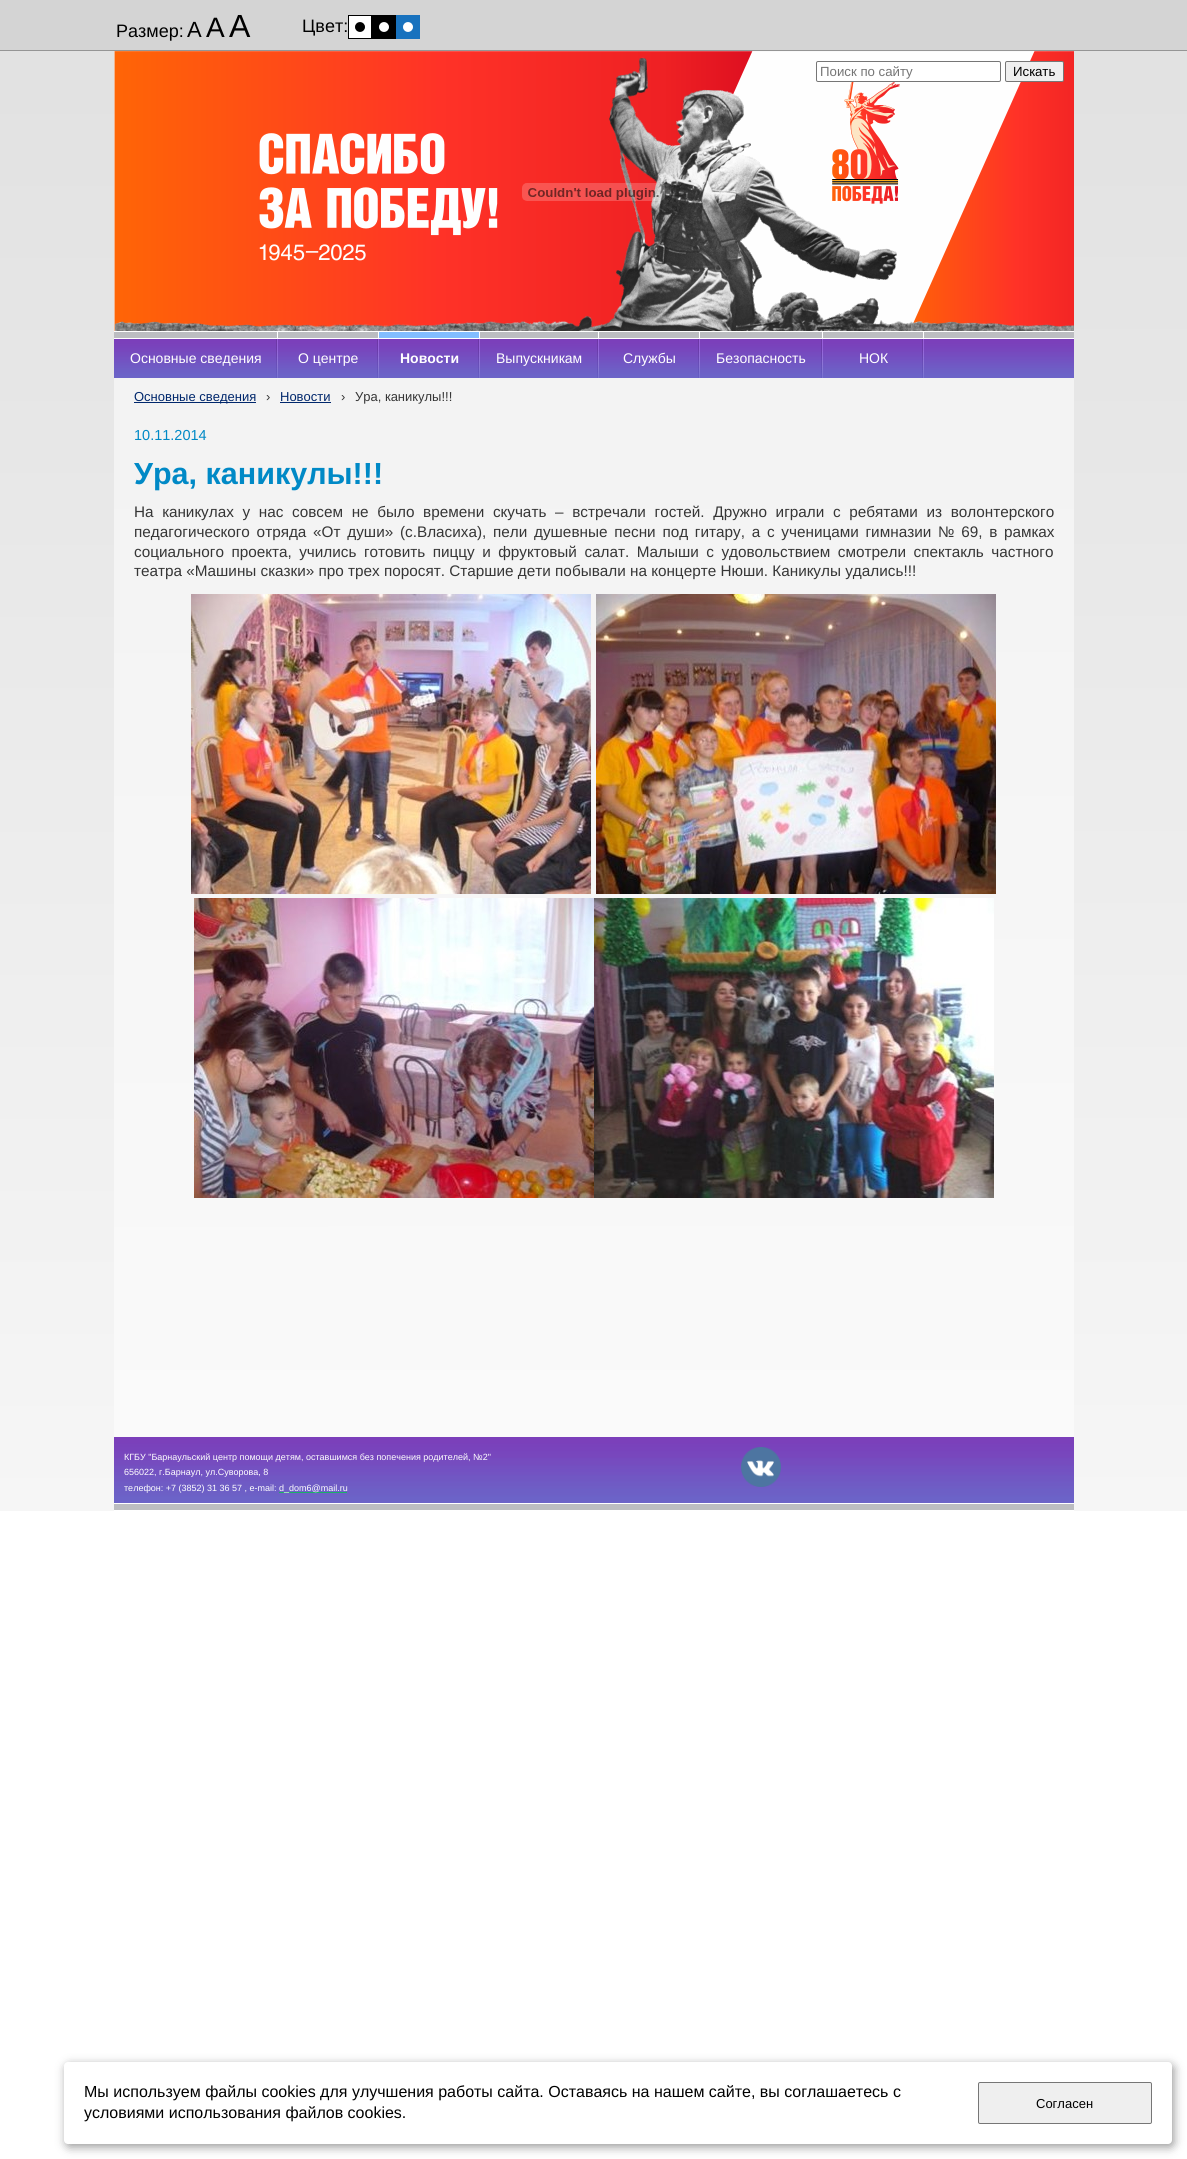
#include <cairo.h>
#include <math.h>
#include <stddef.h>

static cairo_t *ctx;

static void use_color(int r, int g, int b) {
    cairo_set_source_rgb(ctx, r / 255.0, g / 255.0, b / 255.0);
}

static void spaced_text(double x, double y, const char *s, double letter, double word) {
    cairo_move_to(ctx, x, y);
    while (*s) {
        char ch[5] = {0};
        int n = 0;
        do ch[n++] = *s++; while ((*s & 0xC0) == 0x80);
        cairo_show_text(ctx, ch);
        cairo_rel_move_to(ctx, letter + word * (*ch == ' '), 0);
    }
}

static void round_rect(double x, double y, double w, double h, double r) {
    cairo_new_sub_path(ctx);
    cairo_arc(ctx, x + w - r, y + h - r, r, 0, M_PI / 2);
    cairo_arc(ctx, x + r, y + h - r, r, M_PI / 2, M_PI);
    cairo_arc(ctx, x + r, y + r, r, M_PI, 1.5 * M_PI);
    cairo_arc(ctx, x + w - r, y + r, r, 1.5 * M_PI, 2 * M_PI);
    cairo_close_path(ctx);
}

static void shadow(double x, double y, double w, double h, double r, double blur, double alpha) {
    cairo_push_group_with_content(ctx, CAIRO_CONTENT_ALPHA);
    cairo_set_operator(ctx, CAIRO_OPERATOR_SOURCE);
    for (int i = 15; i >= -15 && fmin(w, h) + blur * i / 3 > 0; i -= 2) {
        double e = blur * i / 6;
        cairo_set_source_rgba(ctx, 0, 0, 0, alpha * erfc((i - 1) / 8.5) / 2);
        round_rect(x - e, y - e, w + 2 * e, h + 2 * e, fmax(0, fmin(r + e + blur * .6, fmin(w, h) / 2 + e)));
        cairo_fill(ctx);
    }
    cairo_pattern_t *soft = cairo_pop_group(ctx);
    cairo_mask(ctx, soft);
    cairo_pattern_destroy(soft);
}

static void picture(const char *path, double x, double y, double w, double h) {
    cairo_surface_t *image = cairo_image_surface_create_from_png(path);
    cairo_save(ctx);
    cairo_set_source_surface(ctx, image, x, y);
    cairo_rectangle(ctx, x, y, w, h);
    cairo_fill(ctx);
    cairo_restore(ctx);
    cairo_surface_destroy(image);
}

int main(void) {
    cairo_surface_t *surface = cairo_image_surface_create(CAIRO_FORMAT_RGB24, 1187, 2159);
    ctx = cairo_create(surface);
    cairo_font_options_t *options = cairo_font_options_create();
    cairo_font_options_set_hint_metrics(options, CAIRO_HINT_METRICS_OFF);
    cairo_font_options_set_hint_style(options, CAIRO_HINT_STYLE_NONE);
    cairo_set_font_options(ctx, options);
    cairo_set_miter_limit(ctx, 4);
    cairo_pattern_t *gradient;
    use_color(255, 255, 255);
    cairo_paint(ctx);
    use_color(212, 212, 212);
    cairo_rectangle(ctx, 0, 0, 1187, 50);
    cairo_fill(ctx);
    use_color(149, 149, 149);
    cairo_rectangle(ctx, 0, 50, 1187, 1);
    cairo_fill(ctx);
    cairo_select_font_face(ctx, "Liberation Sans", CAIRO_FONT_SLANT_NORMAL, CAIRO_FONT_WEIGHT_NORMAL);
    cairo_set_font_size(ctx, 18);
    use_color(0, 0, 0);
    cairo_move_to(ctx, 116, 37);
    cairo_show_text(ctx, "Размер:");
    cairo_set_font_size(ctx, 22);
    cairo_move_to(ctx, 187, 37);
    cairo_show_text(ctx, "А");
    cairo_set_font_size(ctx, 28);
    cairo_move_to(ctx, 206, 37);
    cairo_show_text(ctx, "А");
    cairo_set_font_size(ctx, 32);
    cairo_move_to(ctx, 229, 37);
    cairo_show_text(ctx, "А");
    cairo_set_font_size(ctx, 18);
    cairo_move_to(ctx, 302, 32);
    cairo_show_text(ctx, "Цвет:");
    picture("img1.png", 348, 15, 24, 24);
    picture("img2.png", 372, 15, 24, 24);
    picture("img3.png", 396, 15, 24, 24);
    gradient = cairo_pattern_create_linear(593, 0, 594, 2159);
    cairo_pattern_add_color_stop_rgba(gradient, 0, 0.882, 0.882, 0.882, 1);
    cairo_pattern_add_color_stop_rgba(gradient, 1, 1, 1, 1, 1);
    cairo_set_source(ctx, gradient);
    cairo_pattern_destroy(gradient);
    cairo_rectangle(ctx, 0, 51, 1187, 1460);
    cairo_fill(ctx);
    gradient = cairo_pattern_create_linear(593, 0, 594, 2159);
    cairo_pattern_add_color_stop_rgba(gradient, 0, 0.941, 0.941, 0.941, 1);
    cairo_pattern_add_color_stop_rgba(gradient, 1, 1, 1, 1, 1);
    cairo_set_source(ctx, gradient);
    cairo_pattern_destroy(gradient);
    cairo_rectangle(ctx, 114, 378, 960, 1059);
    cairo_fill(ctx);
    picture("img4.png", 114, 51, 960, 280);
    use_color(255, 255, 255);
    round_rect(816.5, 61.5, 184, 20, 1.5);
    cairo_fill_preserve(ctx);
    use_color(118, 118, 118);
    cairo_set_line_width(ctx, 1);
    cairo_stroke(ctx);
    cairo_set_font_size(ctx, 13.25);
    use_color(117, 117, 117);
    cairo_move_to(ctx, 820, 76);
    cairo_show_text(ctx, "Поиск по сайту");
    use_color(239, 239, 239);
    round_rect(1005.5, 61.5, 58, 20, 1.5);
    cairo_fill_preserve(ctx);
    use_color(118, 118, 118);
    cairo_stroke(ctx);
    use_color(0, 0, 0);
    cairo_move_to(ctx, 1013, 76);
    cairo_show_text(ctx, "Искать");
    picture("img5.png", 522, 183, 143, 18);
    picture("img6.png", 114, 331, 960, 47);
    picture("img7.png", 277, 332, 1, 46);
    picture("img8.png", 276, 339, 1, 39);
    cairo_set_font_size(ctx, 14);
    use_color(255, 255, 255);
    cairo_move_to(ctx, 130, 363);
    cairo_show_text(ctx, "Основные сведения");
    picture("img7.png", 378, 332, 1, 46);
    picture("img8.png", 377, 339, 1, 39);
    cairo_move_to(ctx, 298, 363);
    cairo_show_text(ctx, "О центре");
    picture("img7.png", 479, 332, 1, 46);
    use_color(130, 189, 255);
    cairo_rectangle(ctx, 379, 332, 100, 6);
    cairo_fill(ctx);
    picture("img8.png", 478, 339, 1, 39);
    cairo_select_font_face(ctx, "Liberation Sans", CAIRO_FONT_SLANT_NORMAL, CAIRO_FONT_WEIGHT_BOLD);
    use_color(255, 255, 255);
    cairo_move_to(ctx, 400, 363);
    cairo_show_text(ctx, "Новости");
    picture("img7.png", 598, 332, 1, 46);
    picture("img8.png", 597, 339, 1, 39);
    cairo_select_font_face(ctx, "Liberation Sans", CAIRO_FONT_SLANT_NORMAL, CAIRO_FONT_WEIGHT_NORMAL);
    cairo_move_to(ctx, 496, 363);
    cairo_show_text(ctx, "Выпускникам");
    picture("img7.png", 699, 332, 1, 46);
    picture("img8.png", 698, 339, 1, 39);
    cairo_move_to(ctx, 623, 363);
    cairo_show_text(ctx, "Службы");
    picture("img7.png", 822, 332, 1, 46);
    picture("img8.png", 821, 339, 1, 39);
    cairo_move_to(ctx, 716, 363);
    cairo_show_text(ctx, "Безопасность");
    picture("img7.png", 923, 332, 1, 46);
    picture("img8.png", 922, 339, 1, 39);
    cairo_move_to(ctx, 859, 363);
    cairo_show_text(ctx, "НОК");
    use_color(0, 39, 108);
    cairo_rectangle(ctx, 134, 402, 122, 1);
    cairo_fill(ctx);
    cairo_set_font_size(ctx, 13);
    cairo_move_to(ctx, 134, 401);
    cairo_show_text(ctx, "Основные сведения");
    use_color(54, 54, 54);
    cairo_move_to(ctx, 266, 401);
    cairo_show_text(ctx, "›");
    use_color(0, 39, 108);
    cairo_move_to(ctx, 280, 401);
    cairo_show_text(ctx, "Новости");
    cairo_rectangle(ctx, 280, 402, 51, 1);
    cairo_fill(ctx);
    use_color(54, 54, 54);
    cairo_move_to(ctx, 341, 401);
    cairo_show_text(ctx, "›");
    cairo_move_to(ctx, 355, 401);
    cairo_show_text(ctx, "Ура, каникулы!!!");
    cairo_set_font_size(ctx, 14.5);
    use_color(0, 137, 198);
    cairo_move_to(ctx, 134, 440);
    cairo_show_text(ctx, "10.11.2014");
    cairo_select_font_face(ctx, "Liberation Sans", CAIRO_FONT_SLANT_NORMAL, CAIRO_FONT_WEIGHT_BOLD);
    cairo_set_font_size(ctx, 30.5);
    cairo_move_to(ctx, 134, 484);
    cairo_show_text(ctx, "Ура, каникулы!!!");
    cairo_select_font_face(ctx, "Liberation Sans", CAIRO_FONT_SLANT_NORMAL, CAIRO_FONT_WEIGHT_NORMAL);
    cairo_set_font_size(ctx, 15.3);
    use_color(54, 54, 54);
    spaced_text(134, 517, "На каникулах у нас совсем не было времени скучать – встречали гостей. Дружно играли с ребятами из волонтерского", 0, 4.4);
    spaced_text(134, 537, "педагогического отряда «От души» (с.Власиха), пели душевные песни под гитару, а с ученицами гимназии № 69, в рамках", 0, 2.5);
    spaced_text(134, 557, "социального проекта, учились готовить пиццу и фруктовый салат. Малыши с удовольствием смотрели спектакль частного", 0, 3.25);
    cairo_move_to(ctx, 134, 576);
    cairo_show_text(ctx, "театра «Машины сказки» про трех поросят. Старшие дети побывали на концерте Нюши. Каникулы удались!!!");
    picture("img9.png", 191, 594, 400, 300);
    picture("img10.png", 596, 594, 400, 300);
    picture("img11.png", 194, 898, 400, 300);
    picture("img12.png", 594, 898, 400, 300);
    picture("img13.png", 114, 1437, 960, 74);
    cairo_set_font_size(ctx, 9);
    use_color(255, 255, 255);
    cairo_move_to(ctx, 124, 1460);
    cairo_show_text(ctx, "КГБУ \"Барнаульский центр помощи детям, оставшимся без попечения родителей, №2\"");
    cairo_move_to(ctx, 124, 1475);
    cairo_show_text(ctx, "656022, г.Барнаул, ул.Суворова, 8");
    cairo_move_to(ctx, 124, 1491);
    cairo_show_text(ctx, "телефон: +7 (3852) 31 36 57 , e-mail:");
    use_color(24, 176, 103);
    cairo_rectangle(ctx, 279, 1492, 68, 1);
    cairo_fill(ctx);
    use_color(255, 255, 255);
    cairo_move_to(ctx, 279, 1491);
    cairo_show_text(ctx, "d_dom6@mail.ru");
    picture("img14.png", 741, 1447, 40, 40);
    use_color(0, 0, 0);
    shadow(66, 2065, 1108, 82, 4, 5, 0.4);
    use_color(255, 255, 255);
    round_rect(64, 2062, 1108, 82, 4);
    cairo_fill(ctx);
    cairo_set_font_size(ctx, 16);
    use_color(0, 0, 0);
    cairo_move_to(ctx, 84, 2097);
    cairo_show_text(ctx, "Мы используем файлы cookies для улучшения работы сайта. Оставаясь на нашем сайте, вы соглашаетесь с");
    cairo_move_to(ctx, 84, 2118);
    cairo_show_text(ctx, "условиями использования файлов cookies.");
    use_color(239, 239, 239);
    round_rect(978.5, 2082.5, 173, 41, 1.5);
    cairo_fill_preserve(ctx);
    use_color(118, 118, 118);
    cairo_stroke(ctx);
    cairo_set_font_size(ctx, 13);
    use_color(0, 0, 0);
    cairo_move_to(ctx, 1036, 2108);
    cairo_show_text(ctx, "Согласен");
    cairo_surface_write_to_png(surface, "result.png");
    cairo_font_options_destroy(options);
    cairo_destroy(ctx);
    cairo_surface_destroy(surface);
    return 0;
}
